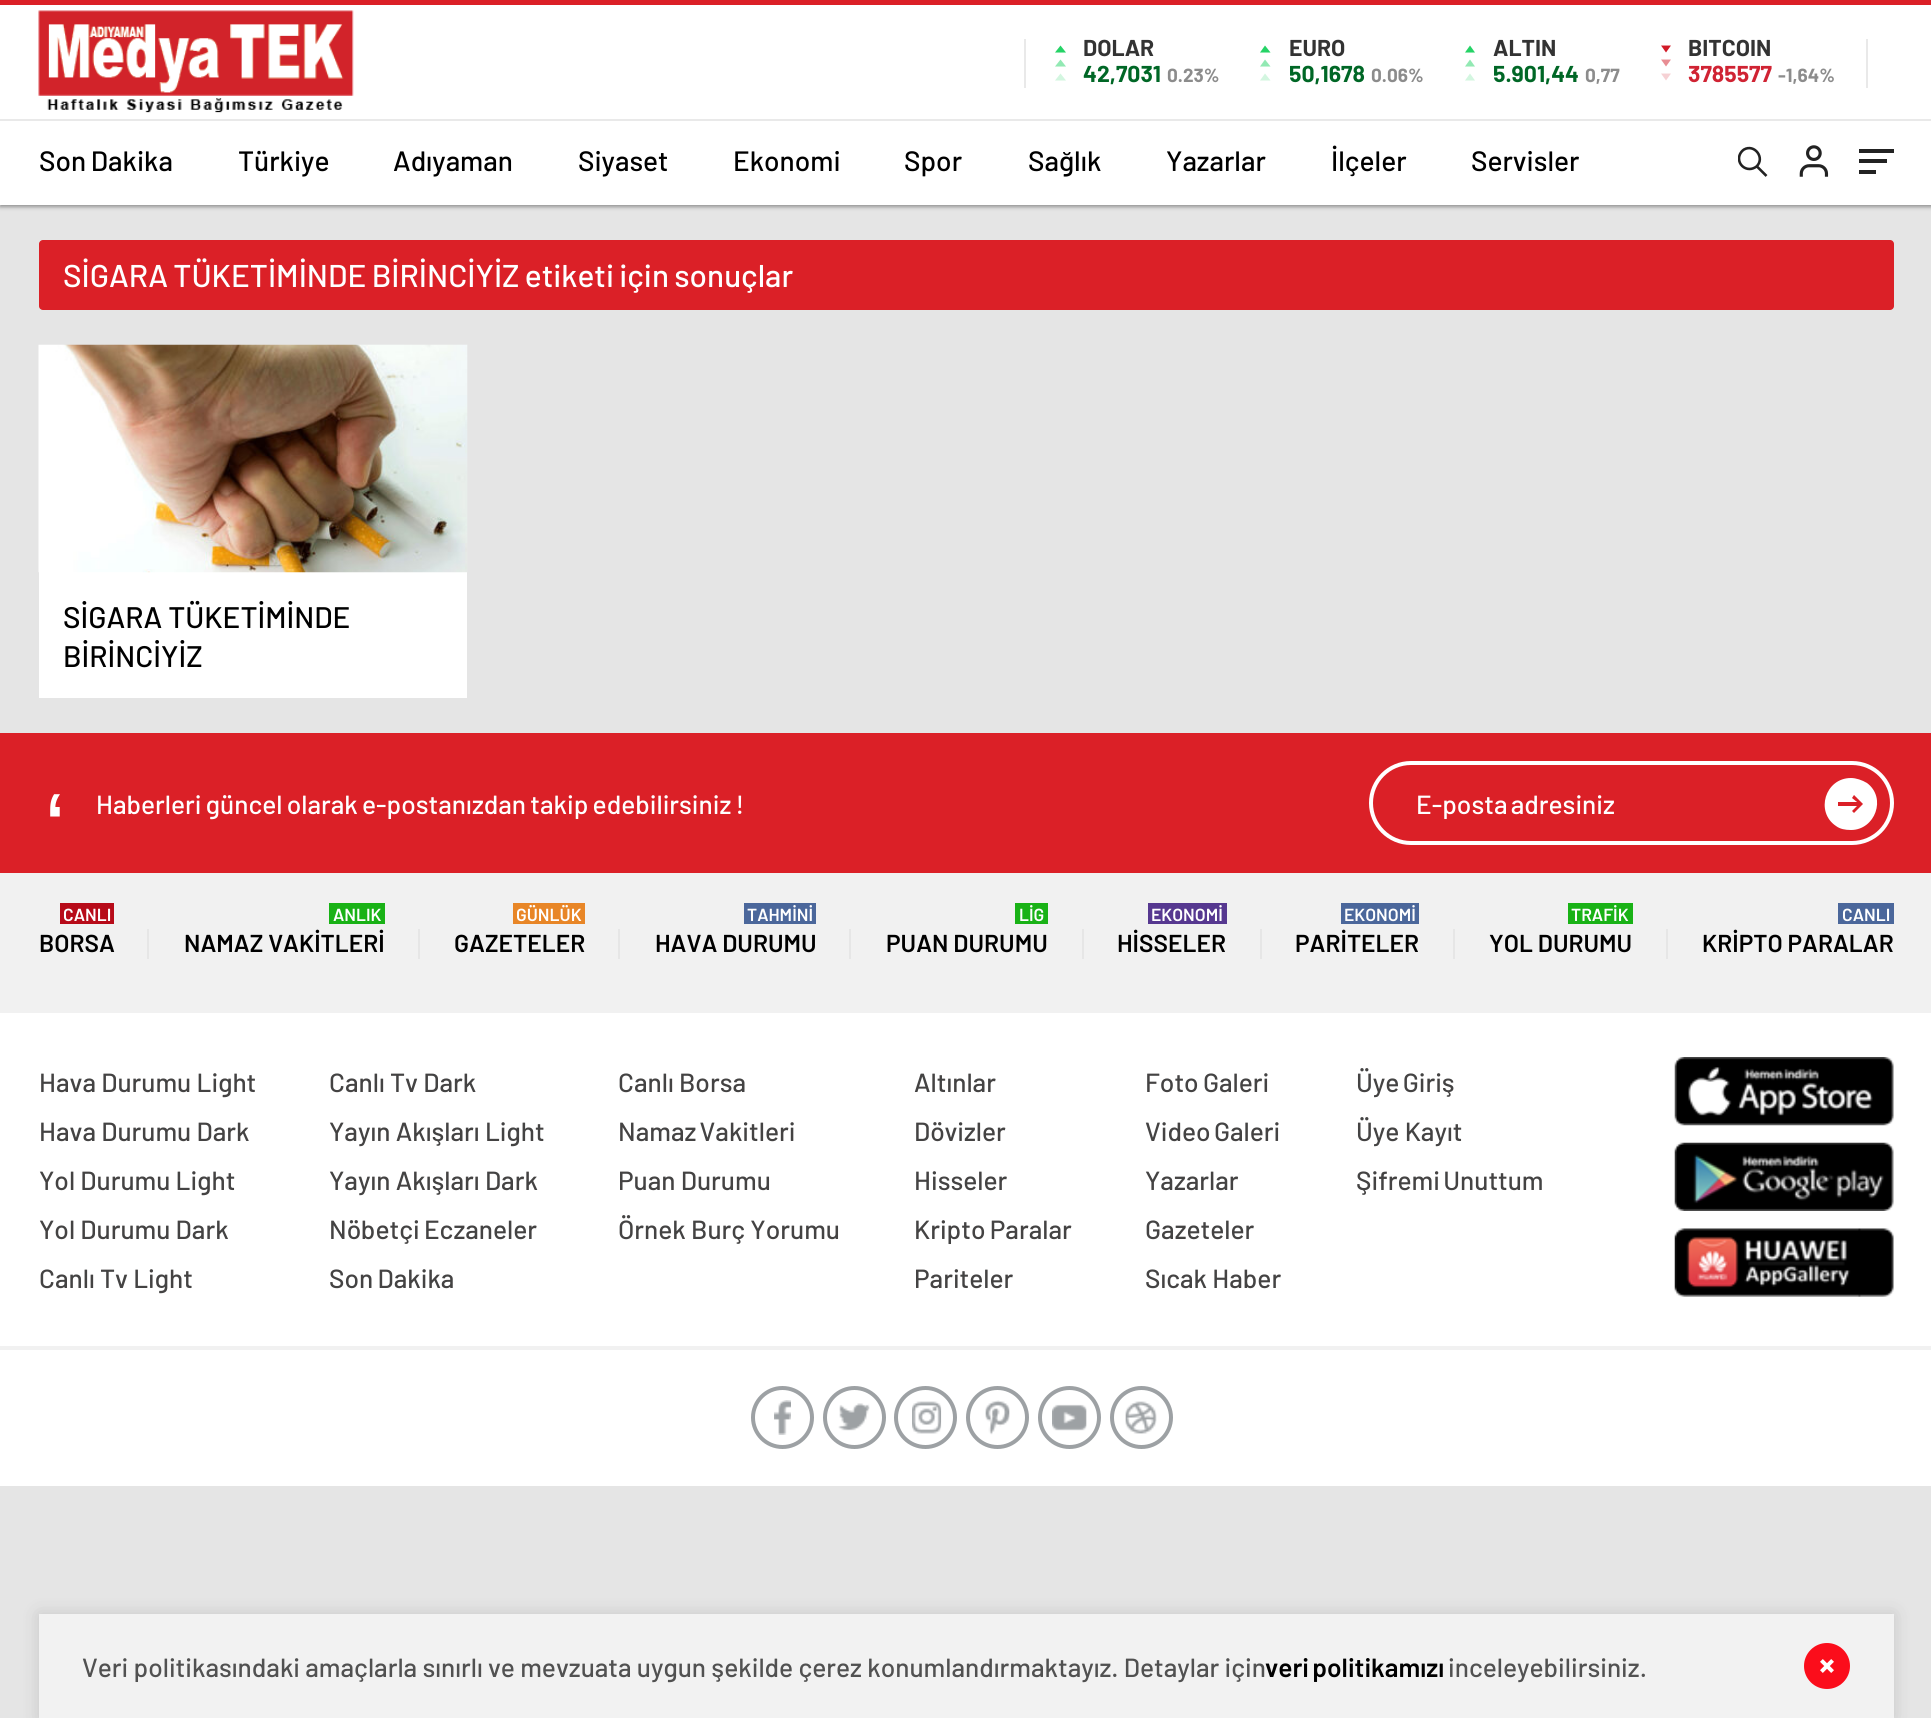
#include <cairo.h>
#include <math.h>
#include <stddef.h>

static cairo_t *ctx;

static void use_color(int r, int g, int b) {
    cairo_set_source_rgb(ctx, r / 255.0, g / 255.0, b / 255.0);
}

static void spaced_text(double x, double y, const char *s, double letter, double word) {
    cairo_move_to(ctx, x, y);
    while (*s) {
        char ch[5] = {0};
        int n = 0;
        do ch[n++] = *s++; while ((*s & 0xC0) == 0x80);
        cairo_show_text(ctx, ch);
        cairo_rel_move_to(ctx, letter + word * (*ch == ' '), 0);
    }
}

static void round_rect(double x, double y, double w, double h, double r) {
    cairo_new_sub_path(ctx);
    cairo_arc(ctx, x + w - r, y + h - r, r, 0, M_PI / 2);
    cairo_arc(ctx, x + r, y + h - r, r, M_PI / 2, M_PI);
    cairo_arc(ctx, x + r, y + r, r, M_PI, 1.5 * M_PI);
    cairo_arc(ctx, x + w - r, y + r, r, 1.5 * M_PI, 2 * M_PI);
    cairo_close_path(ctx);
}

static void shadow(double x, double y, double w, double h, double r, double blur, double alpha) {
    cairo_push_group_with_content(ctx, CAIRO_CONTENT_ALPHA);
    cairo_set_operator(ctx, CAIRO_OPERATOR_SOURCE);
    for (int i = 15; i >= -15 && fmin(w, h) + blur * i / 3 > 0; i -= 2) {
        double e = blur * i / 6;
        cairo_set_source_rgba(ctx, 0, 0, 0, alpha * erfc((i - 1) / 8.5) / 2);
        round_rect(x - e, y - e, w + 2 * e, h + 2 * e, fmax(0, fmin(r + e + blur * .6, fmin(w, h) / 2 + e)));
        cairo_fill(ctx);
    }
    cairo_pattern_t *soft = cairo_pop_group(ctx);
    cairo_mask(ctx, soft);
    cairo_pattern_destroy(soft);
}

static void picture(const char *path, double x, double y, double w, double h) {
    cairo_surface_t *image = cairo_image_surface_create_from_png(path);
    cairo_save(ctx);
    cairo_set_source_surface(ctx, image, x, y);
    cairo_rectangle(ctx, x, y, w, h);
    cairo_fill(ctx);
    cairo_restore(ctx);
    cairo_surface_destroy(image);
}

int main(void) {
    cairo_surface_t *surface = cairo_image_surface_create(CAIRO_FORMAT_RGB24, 1931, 1718);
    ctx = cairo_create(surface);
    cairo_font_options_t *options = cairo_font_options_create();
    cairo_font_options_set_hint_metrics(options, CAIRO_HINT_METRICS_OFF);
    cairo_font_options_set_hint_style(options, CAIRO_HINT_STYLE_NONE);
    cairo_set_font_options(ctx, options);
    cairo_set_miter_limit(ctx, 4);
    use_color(229, 229, 229);
    cairo_paint(ctx);
    use_color(0, 0, 0);
    shadow(0, 2, 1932, 205, 0, 2, 0.37);
    use_color(255, 255, 255);
    cairo_rectangle(ctx, 0, 5, 1931, 200);
    cairo_fill(ctx);
    use_color(219, 32, 39);
    cairo_rectangle(ctx, 0, 0, 1931, 5);
    cairo_fill(ctx);
    picture("img1.png", 38, 10, 316, 103);
    use_color(233, 233, 233);
    cairo_rectangle(ctx, 1024, 39, 2, 49);
    cairo_fill(ctx);
    use_color(37, 211, 102);
    cairo_new_path(ctx);
    cairo_move_to(ctx, 1066, 52.5);
    cairo_line_to(ctx, 1055, 52.5);
    cairo_line_to(ctx, 1060.5, 45.5);
    cairo_close_path(ctx);
    cairo_fill(ctx);
    use_color(146, 233, 179);
    cairo_new_path(ctx);
    cairo_move_to(ctx, 1066, 66.5);
    cairo_line_to(ctx, 1055, 66.5);
    cairo_line_to(ctx, 1060.5, 59.5);
    cairo_close_path(ctx);
    cairo_fill(ctx);
    use_color(211, 246, 224);
    cairo_new_path(ctx);
    cairo_move_to(ctx, 1066, 80.5);
    cairo_line_to(ctx, 1055, 80.5);
    cairo_line_to(ctx, 1060.5, 73.5);
    cairo_close_path(ctx);
    cairo_fill(ctx);
    cairo_select_font_face(ctx, "Barlow", CAIRO_FONT_SLANT_NORMAL, CAIRO_FONT_WEIGHT_BOLD);
    cairo_set_font_size(ctx, 23);
    use_color(51, 51, 51);
    cairo_move_to(ctx, 1083, 56);
    cairo_show_text(ctx, "DOLAR");
    use_color(0, 103, 38);
    cairo_move_to(ctx, 1083, 82);
    cairo_show_text(ctx, "42,7031");
    cairo_set_font_size(ctx, 19);
    use_color(140, 140, 140);
    cairo_move_to(ctx, 1167, 82);
    cairo_show_text(ctx, "0.23%");
    use_color(37, 211, 102);
    cairo_new_path(ctx);
    cairo_move_to(ctx, 1270.5, 52.5);
    cairo_line_to(ctx, 1260, 52.5);
    cairo_line_to(ctx, 1265, 45.5);
    cairo_close_path(ctx);
    cairo_fill(ctx);
    use_color(146, 233, 179);
    cairo_new_path(ctx);
    cairo_move_to(ctx, 1270.5, 66.5);
    cairo_line_to(ctx, 1260, 66.5);
    cairo_line_to(ctx, 1265, 59.5);
    cairo_close_path(ctx);
    cairo_fill(ctx);
    use_color(211, 246, 224);
    cairo_new_path(ctx);
    cairo_move_to(ctx, 1270.5, 80.5);
    cairo_line_to(ctx, 1260, 80.5);
    cairo_line_to(ctx, 1265, 73.5);
    cairo_close_path(ctx);
    cairo_fill(ctx);
    cairo_set_font_size(ctx, 23);
    use_color(51, 51, 51);
    cairo_move_to(ctx, 1289, 56);
    cairo_show_text(ctx, "EURO");
    use_color(0, 103, 38);
    cairo_move_to(ctx, 1289, 82);
    cairo_show_text(ctx, "50,1678");
    cairo_set_font_size(ctx, 19);
    use_color(140, 140, 140);
    cairo_move_to(ctx, 1371, 82);
    cairo_show_text(ctx, "0.06%");
    use_color(37, 211, 102);
    cairo_new_path(ctx);
    cairo_move_to(ctx, 1475, 52.5);
    cairo_line_to(ctx, 1465, 52.5);
    cairo_line_to(ctx, 1470, 45.5);
    cairo_close_path(ctx);
    cairo_fill(ctx);
    use_color(146, 233, 179);
    cairo_new_path(ctx);
    cairo_move_to(ctx, 1475, 66.5);
    cairo_line_to(ctx, 1465, 66.5);
    cairo_line_to(ctx, 1470, 59.5);
    cairo_close_path(ctx);
    cairo_fill(ctx);
    use_color(211, 246, 224);
    cairo_new_path(ctx);
    cairo_move_to(ctx, 1475, 80.5);
    cairo_line_to(ctx, 1465, 80.5);
    cairo_line_to(ctx, 1470, 73.5);
    cairo_close_path(ctx);
    cairo_fill(ctx);
    cairo_set_font_size(ctx, 23);
    use_color(51, 51, 51);
    cairo_move_to(ctx, 1493, 56);
    cairo_show_text(ctx, "ALTIN");
    use_color(0, 103, 38);
    cairo_move_to(ctx, 1493, 82);
    cairo_show_text(ctx, "5.901,44");
    cairo_set_font_size(ctx, 19);
    use_color(140, 140, 140);
    cairo_move_to(ctx, 1585, 82);
    cairo_show_text(ctx, "0,77");
    use_color(209, 26, 39);
    cairo_new_path(ctx);
    cairo_move_to(ctx, 1661, 45.5);
    cairo_line_to(ctx, 1671, 45.5);
    cairo_line_to(ctx, 1666, 52.5);
    cairo_close_path(ctx);
    cairo_fill(ctx);
    use_color(232, 141, 147);
    cairo_new_path(ctx);
    cairo_move_to(ctx, 1661, 59.5);
    cairo_line_to(ctx, 1671, 59.5);
    cairo_line_to(ctx, 1666, 66.5);
    cairo_close_path(ctx);
    cairo_fill(ctx);
    use_color(246, 209, 212);
    cairo_new_path(ctx);
    cairo_move_to(ctx, 1661, 73.5);
    cairo_line_to(ctx, 1671, 73.5);
    cairo_line_to(ctx, 1666, 80.5);
    cairo_close_path(ctx);
    cairo_fill(ctx);
    cairo_set_font_size(ctx, 23);
    use_color(51, 51, 51);
    cairo_move_to(ctx, 1688, 56);
    cairo_show_text(ctx, "BITCOIN");
    use_color(208, 35, 51);
    cairo_move_to(ctx, 1688, 82);
    cairo_show_text(ctx, "3785577");
    cairo_set_font_size(ctx, 19);
    use_color(140, 140, 140);
    cairo_move_to(ctx, 1778, 82);
    cairo_show_text(ctx, "-1,64%");
    use_color(233, 233, 233);
    cairo_rectangle(ctx, 1866, 39, 2, 49);
    cairo_fill(ctx);
    cairo_rectangle(ctx, 0, 119, 1931, 2);
    cairo_fill(ctx);
    cairo_select_font_face(ctx, "Barlow Medium", CAIRO_FONT_SLANT_NORMAL, CAIRO_FONT_WEIGHT_NORMAL);
    cairo_set_font_size(ctx, 28);
    use_color(0, 0, 0);
    spaced_text(39, 171, "Son Dakika", 0, -1);
    cairo_move_to(ctx, 238, 171);
    cairo_show_text(ctx, "Türkiye");
    cairo_move_to(ctx, 393, 171);
    cairo_show_text(ctx, "Adıyaman");
    cairo_move_to(ctx, 578, 171);
    cairo_show_text(ctx, "Siyaset");
    cairo_move_to(ctx, 733, 171);
    cairo_show_text(ctx, "Ekonomi");
    cairo_move_to(ctx, 904, 171);
    cairo_show_text(ctx, "Spor");
    cairo_move_to(ctx, 1028, 171);
    cairo_show_text(ctx, "Sağlık");
    cairo_move_to(ctx, 1166, 171);
    cairo_show_text(ctx, "Yazarlar");
    cairo_move_to(ctx, 1331, 171);
    cairo_show_text(ctx, "İlçeler");
    cairo_move_to(ctx, 1471, 171);
    cairo_show_text(ctx, "Servisler");
    cairo_save(ctx);
    cairo_rectangle(ctx, 1738, 145, 30, 34);
    cairo_clip(ctx);
    cairo_new_path(ctx);
    cairo_move_to(ctx, 1757.5, 167);
    cairo_line_to(ctx, 1766.5, 176);
    cairo_close_path(ctx);
    cairo_move_to(ctx, 1739, 158.5);
    cairo_curve_to(ctx, 1739, 155, 1741, 151.5, 1744, 149.5);
    cairo_curve_to(ctx, 1754.5, 143.5, 1765.5, 158, 1756.5, 166.5);
    cairo_curve_to(ctx, 1754.5, 168, 1752, 169, 1749.5, 169);
    cairo_curve_to(ctx, 1744, 169, 1739, 164.5, 1739, 158.5);
    cairo_close_path(ctx);
    use_color(34, 34, 34);
    cairo_set_line_width(ctx, 2.6);
    cairo_set_line_cap(ctx, CAIRO_LINE_CAP_ROUND);
    cairo_stroke(ctx);
    cairo_restore(ctx);
    picture("img2.png", 1799, 145, 30, 32);
    use_color(34, 34, 34);
    cairo_rectangle(ctx, 1859, 149, 35, 4);
    cairo_fill(ctx);
    cairo_rectangle(ctx, 1859, 159, 28, 4);
    cairo_fill(ctx);
    cairo_rectangle(ctx, 1859, 170, 17, 4);
    cairo_fill(ctx);
    use_color(219, 32, 39);
    round_rect(39, 240, 1855, 70, 4);
    cairo_fill(ctx);
    cairo_set_font_size(ctx, 31.5);
    use_color(255, 255, 255);
    spaced_text(63, 287, "SİGARA TÜKETİMİNDE BİRİNCİYİZ etiketi için sonuçlar", 0, -1);
    cairo_rectangle(ctx, 39, 572, 428, 126);
    cairo_fill(ctx);
    picture("img3.png", 38, 344, 430, 229);
    cairo_set_font_size(ctx, 29.75);
    use_color(0, 0, 0);
    cairo_move_to(ctx, 63, 628);
    cairo_show_text(ctx, "SİGARA TÜKETİMİNDE");
    cairo_move_to(ctx, 63, 667);
    cairo_show_text(ctx, "BİRİNCİYİZ");
    use_color(255, 255, 255);
    cairo_rectangle(ctx, 0, 1013, 1931, 473);
    cairo_fill(ctx);
    use_color(219, 32, 39);
    cairo_rectangle(ctx, 0, 733, 1931, 140);
    cairo_fill(ctx);
    cairo_select_font_face(ctx, "Liberation Sans", CAIRO_FONT_SLANT_NORMAL, CAIRO_FONT_WEIGHT_NORMAL);
    cairo_set_font_size(ctx, 100);
    use_color(255, 255, 255);
    cairo_move_to(ctx, 44, 863);
    cairo_show_text(ctx, "‘");
    cairo_select_font_face(ctx, "Barlow Medium", CAIRO_FONT_SLANT_NORMAL, CAIRO_FONT_WEIGHT_NORMAL);
    cairo_set_font_size(ctx, 26.25);
    spaced_text(96, 814, "Haberleri güncel olarak e-postanızdan takip edebilirsiniz !", 0, -1);
    round_rect(1371, 763, 521, 80, 40);
    cairo_set_line_width(ctx, 4);
    cairo_stroke(ctx);
    spaced_text(1416, 814, "E-posta adresiniz", 0, -2);
    cairo_new_path(ctx);
    cairo_move_to(ctx, 1851, 830);
    cairo_curve_to(ctx, 1845, 830, 1840, 829, 1836, 826);
    cairo_curve_to(ctx, 1815, 812, 1825, 778, 1851, 778);
    cairo_curve_to(ctx, 1856, 778, 1862, 780, 1867, 783);
    cairo_curve_to(ctx, 1887, 798, 1875, 830, 1851, 830);
    cairo_close_path(ctx);
    cairo_move_to(ctx, 1838, 802);
    cairo_line_to(ctx, 1838, 806);
    cairo_line_to(ctx, 1857, 806);
    cairo_line_to(ctx, 1852, 811);
    cairo_line_to(ctx, 1854, 813);
    cairo_line_to(ctx, 1863, 804);
    cairo_line_to(ctx, 1854, 795);
    cairo_line_to(ctx, 1852, 798);
    cairo_line_to(ctx, 1857, 802);
    cairo_close_path(ctx);
    cairo_fill(ctx);
    use_color(241, 241, 241);
    cairo_rectangle(ctx, 0, 873, 1931, 140);
    cairo_fill(ctx);
    use_color(183, 11, 25);
    cairo_rectangle(ctx, 60, 903, 54, 21);
    cairo_fill(ctx);
    cairo_select_font_face(ctx, "Barlow SemiBold", CAIRO_FONT_SLANT_NORMAL, CAIRO_FONT_WEIGHT_NORMAL);
    cairo_set_font_size(ctx, 17.5);
    use_color(255, 255, 255);
    cairo_move_to(ctx, 63, 921);
    cairo_show_text(ctx, "CANLI");
    cairo_set_font_size(ctx, 24.5);
    use_color(0, 0, 0);
    cairo_move_to(ctx, 39, 952);
    cairo_show_text(ctx, "BORSA");
    use_color(230, 230, 230);
    cairo_rectangle(ctx, 147, 929, 2, 30);
    cairo_fill(ctx);
    use_color(25, 178, 22);
    cairo_rectangle(ctx, 329, 903, 56, 21);
    cairo_fill(ctx);
    cairo_set_font_size(ctx, 17.5);
    use_color(255, 255, 255);
    cairo_move_to(ctx, 333, 921);
    cairo_show_text(ctx, "ANLIK");
    cairo_set_font_size(ctx, 24.5);
    use_color(0, 0, 0);
    cairo_move_to(ctx, 184, 952);
    cairo_show_text(ctx, "NAMAZ VAKİTLERİ");
    use_color(230, 230, 230);
    cairo_rectangle(ctx, 418, 929, 2, 30);
    cairo_fill(ctx);
    use_color(232, 134, 39);
    cairo_rectangle(ctx, 513, 903, 72, 21);
    cairo_fill(ctx);
    cairo_set_font_size(ctx, 17.5);
    use_color(255, 255, 255);
    cairo_move_to(ctx, 516, 921);
    cairo_show_text(ctx, "GÜNLÜK");
    cairo_set_font_size(ctx, 24.5);
    use_color(0, 0, 0);
    cairo_move_to(ctx, 454, 952);
    cairo_show_text(ctx, "GAZETELER");
    use_color(230, 230, 230);
    cairo_rectangle(ctx, 618, 929, 2, 30);
    cairo_fill(ctx);
    use_color(75, 103, 155);
    cairo_rectangle(ctx, 744, 903, 72, 21);
    cairo_fill(ctx);
    cairo_set_font_size(ctx, 17.5);
    use_color(255, 255, 255);
    cairo_move_to(ctx, 747, 921);
    cairo_show_text(ctx, "TAHMİNİ");
    cairo_set_font_size(ctx, 24.5);
    use_color(0, 0, 0);
    cairo_move_to(ctx, 655, 952);
    cairo_show_text(ctx, "HAVA DURUMU");
    use_color(230, 230, 230);
    cairo_rectangle(ctx, 849, 929, 2, 30);
    cairo_fill(ctx);
    use_color(25, 178, 22);
    cairo_rectangle(ctx, 1015, 903, 33, 21);
    cairo_fill(ctx);
    cairo_set_font_size(ctx, 17.5);
    use_color(255, 255, 255);
    cairo_move_to(ctx, 1019, 921);
    cairo_show_text(ctx, "LİG");
    cairo_set_font_size(ctx, 24.5);
    use_color(0, 0, 0);
    cairo_move_to(ctx, 886, 952);
    cairo_show_text(ctx, "PUAN DURUMU");
    use_color(230, 230, 230);
    cairo_rectangle(ctx, 1082, 929, 2, 30);
    cairo_fill(ctx);
    use_color(86, 56, 144);
    cairo_rectangle(ctx, 1148, 903, 79, 21);
    cairo_fill(ctx);
    cairo_set_font_size(ctx, 17.5);
    use_color(255, 255, 255);
    cairo_move_to(ctx, 1151, 921);
    cairo_show_text(ctx, "EKONOMİ");
    cairo_set_font_size(ctx, 24.5);
    use_color(0, 0, 0);
    cairo_move_to(ctx, 1117, 952);
    cairo_show_text(ctx, "HİSSELER");
    use_color(230, 230, 230);
    cairo_rectangle(ctx, 1260, 929, 2, 30);
    cairo_fill(ctx);
    use_color(75, 103, 155);
    cairo_rectangle(ctx, 1341, 903, 78, 21);
    cairo_fill(ctx);
    cairo_set_font_size(ctx, 17.5);
    use_color(255, 255, 255);
    cairo_move_to(ctx, 1344, 921);
    cairo_show_text(ctx, "EKONOMİ");
    cairo_set_font_size(ctx, 24.5);
    use_color(0, 0, 0);
    cairo_move_to(ctx, 1295, 952);
    cairo_show_text(ctx, "PARİTELER");
    use_color(230, 230, 230);
    cairo_rectangle(ctx, 1453, 929, 2, 30);
    cairo_fill(ctx);
    use_color(25, 178, 22);
    cairo_rectangle(ctx, 1568, 903, 65, 21);
    cairo_fill(ctx);
    cairo_set_font_size(ctx, 17.5);
    use_color(255, 255, 255);
    cairo_move_to(ctx, 1571, 921);
    cairo_show_text(ctx, "TRAFİK");
    cairo_set_font_size(ctx, 24.5);
    use_color(0, 0, 0);
    cairo_move_to(ctx, 1489, 952);
    cairo_show_text(ctx, "YOL DURUMU");
    use_color(230, 230, 230);
    cairo_rectangle(ctx, 1666, 929, 2, 30);
    cairo_fill(ctx);
    use_color(75, 103, 155);
    cairo_rectangle(ctx, 1838, 903, 56, 21);
    cairo_fill(ctx);
    cairo_set_font_size(ctx, 17.5);
    use_color(255, 255, 255);
    cairo_move_to(ctx, 1842, 921);
    cairo_show_text(ctx, "CANLI");
    cairo_set_font_size(ctx, 24.5);
    use_color(0, 0, 0);
    cairo_move_to(ctx, 1702, 952);
    cairo_show_text(ctx, "KRİPTO PARALAR");
    cairo_select_font_face(ctx, "Barlow Medium", CAIRO_FONT_SLANT_NORMAL, CAIRO_FONT_WEIGHT_NORMAL);
    cairo_set_font_size(ctx, 26.25);
    use_color(68, 67, 67);
    cairo_move_to(ctx, 39, 1092);
    cairo_show_text(ctx, "Hava Durumu Light");
    cairo_move_to(ctx, 39, 1141);
    cairo_show_text(ctx, "Hava Durumu Dark");
    cairo_move_to(ctx, 39, 1190);
    cairo_show_text(ctx, "Yol Durumu Light");
    cairo_move_to(ctx, 39, 1239);
    cairo_show_text(ctx, "Yol Durumu Dark");
    cairo_move_to(ctx, 39, 1288);
    cairo_show_text(ctx, "Canlı Tv Light");
    cairo_move_to(ctx, 329, 1092);
    cairo_show_text(ctx, "Canlı Tv Dark");
    cairo_move_to(ctx, 329, 1141);
    cairo_show_text(ctx, "Yayın Akışları Light");
    cairo_move_to(ctx, 329, 1190);
    cairo_show_text(ctx, "Yayın Akışları Dark");
    spaced_text(329, 1239, "Nöbetçi Eczaneler", 0, -1);
    spaced_text(329, 1288, "Son Dakika", 0, -1);
    cairo_move_to(ctx, 618, 1092);
    cairo_show_text(ctx, "Canlı Borsa");
    spaced_text(618, 1141, "Namaz Vakitleri", 0, -2);
    cairo_move_to(ctx, 618, 1190);
    cairo_show_text(ctx, "Puan Durumu");
    cairo_move_to(ctx, 618, 1239);
    cairo_show_text(ctx, "Örnek Burç Yorumu");
    cairo_move_to(ctx, 914, 1092);
    cairo_show_text(ctx, "Altınlar");
    cairo_move_to(ctx, 914, 1141);
    cairo_show_text(ctx, "Dövizler");
    cairo_move_to(ctx, 914, 1190);
    cairo_show_text(ctx, "Hisseler");
    spaced_text(914, 1239, "Kripto Paralar", 0, -1);
    cairo_move_to(ctx, 914, 1288);
    cairo_show_text(ctx, "Pariteler");
    spaced_text(1145, 1092, "Foto Galeri", 0, -1);
    spaced_text(1145, 1141, "Video Galeri", 0, -2);
    cairo_move_to(ctx, 1145, 1190);
    cairo_show_text(ctx, "Yazarlar");
    cairo_move_to(ctx, 1145, 1239);
    cairo_show_text(ctx, "Gazeteler");
    cairo_move_to(ctx, 1145, 1288);
    cairo_show_text(ctx, "Sıcak Haber");
    spaced_text(1356, 1092, "Üye Giriş", 0, -2);
    cairo_move_to(ctx, 1356, 1141);
    cairo_show_text(ctx, "Üye Kayıt");
    spaced_text(1356, 1190, "Şifremi Unuttum", 0, -2);
    picture("img4.png", 1674, 1057, 220, 69);
    picture("img5.png", 1674, 1142, 220, 69);
    picture("img6.png", 1674, 1228, 220, 69);
    use_color(241, 241, 241);
    cairo_rectangle(ctx, 0, 1346, 1931, 4);
    cairo_fill(ctx);
    cairo_arc(ctx, 782.5, 1417.5, 29.5, 0, 2 * M_PI);
    use_color(157, 161, 164);
    cairo_stroke(ctx);
    picture("img7.png", 774, 1400, 17, 35);
    cairo_arc(ctx, 854.5, 1417.5, 29.5, 0, 2 * M_PI);
    cairo_stroke(ctx);
    picture("img8.png", 838, 1403, 32, 28);
    cairo_arc(ctx, 925.5, 1417.5, 29.5, 0, 2 * M_PI);
    cairo_stroke(ctx);
    picture("img9.png", 912, 1401, 30, 33);
    cairo_arc(ctx, 997.5, 1417.5, 29.5, 0, 2 * M_PI);
    cairo_stroke(ctx);
    picture("img10.png", 985, 1400, 25, 35);
    cairo_arc(ctx, 1069.5, 1417.5, 29.5, 0, 2 * M_PI);
    cairo_stroke(ctx);
    picture("img11.png", 1052, 1404, 35, 27);
    cairo_arc(ctx, 1141.5, 1417.5, 29.5, 0, 2 * M_PI);
    cairo_stroke(ctx);
    picture("img12.png", 1125, 1401, 32, 33);
    use_color(34, 34, 34);
    shadow(39, 1614, 1855, 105, 0, 9, 0.16);
    use_color(242, 242, 242);
    cairo_rectangle(ctx, 39, 1614, 1855, 104);
    cairo_fill(ctx);
    use_color(81, 81, 81);
    cairo_move_to(ctx, 82, 1677);
    cairo_show_text(ctx, "Veri politikasındaki amaçlarla sınırlı ve mevzuata uygun şekilde çerez konumlandırmaktayız. Detaylar için");
    cairo_select_font_face(ctx, "Barlow SemiBold", CAIRO_FONT_SLANT_NORMAL, CAIRO_FONT_WEIGHT_NORMAL);
    use_color(0, 0, 0);
    spaced_text(1265, 1677, "veri politikamızı", 0, -2);
    cairo_select_font_face(ctx, "Barlow Medium", CAIRO_FONT_SLANT_NORMAL, CAIRO_FONT_WEIGHT_NORMAL);
    use_color(81, 81, 81);
    cairo_move_to(ctx, 1448, 1677);
    cairo_show_text(ctx, "inceleyebilirsiniz.");
    use_color(251, 13, 27);
    cairo_new_path(ctx);
    cairo_arc(ctx, 1827, 1666, 23, 0, 2 * M_PI);
    cairo_fill(ctx);
    picture("img13.png", 1820, 1659, 14, 14);
    cairo_surface_write_to_png(surface, "result.png");
    cairo_font_options_destroy(options);
    cairo_destroy(ctx);
    cairo_surface_destroy(surface);
    return 0;
}
